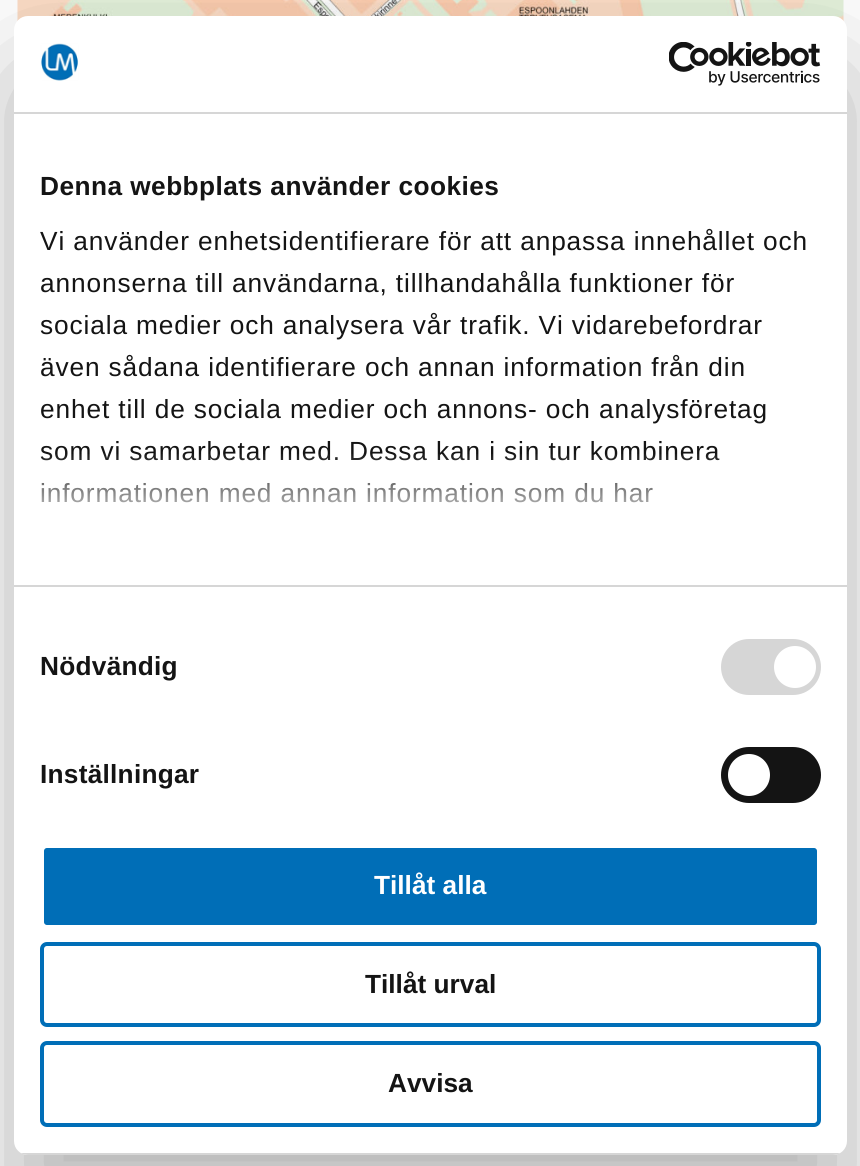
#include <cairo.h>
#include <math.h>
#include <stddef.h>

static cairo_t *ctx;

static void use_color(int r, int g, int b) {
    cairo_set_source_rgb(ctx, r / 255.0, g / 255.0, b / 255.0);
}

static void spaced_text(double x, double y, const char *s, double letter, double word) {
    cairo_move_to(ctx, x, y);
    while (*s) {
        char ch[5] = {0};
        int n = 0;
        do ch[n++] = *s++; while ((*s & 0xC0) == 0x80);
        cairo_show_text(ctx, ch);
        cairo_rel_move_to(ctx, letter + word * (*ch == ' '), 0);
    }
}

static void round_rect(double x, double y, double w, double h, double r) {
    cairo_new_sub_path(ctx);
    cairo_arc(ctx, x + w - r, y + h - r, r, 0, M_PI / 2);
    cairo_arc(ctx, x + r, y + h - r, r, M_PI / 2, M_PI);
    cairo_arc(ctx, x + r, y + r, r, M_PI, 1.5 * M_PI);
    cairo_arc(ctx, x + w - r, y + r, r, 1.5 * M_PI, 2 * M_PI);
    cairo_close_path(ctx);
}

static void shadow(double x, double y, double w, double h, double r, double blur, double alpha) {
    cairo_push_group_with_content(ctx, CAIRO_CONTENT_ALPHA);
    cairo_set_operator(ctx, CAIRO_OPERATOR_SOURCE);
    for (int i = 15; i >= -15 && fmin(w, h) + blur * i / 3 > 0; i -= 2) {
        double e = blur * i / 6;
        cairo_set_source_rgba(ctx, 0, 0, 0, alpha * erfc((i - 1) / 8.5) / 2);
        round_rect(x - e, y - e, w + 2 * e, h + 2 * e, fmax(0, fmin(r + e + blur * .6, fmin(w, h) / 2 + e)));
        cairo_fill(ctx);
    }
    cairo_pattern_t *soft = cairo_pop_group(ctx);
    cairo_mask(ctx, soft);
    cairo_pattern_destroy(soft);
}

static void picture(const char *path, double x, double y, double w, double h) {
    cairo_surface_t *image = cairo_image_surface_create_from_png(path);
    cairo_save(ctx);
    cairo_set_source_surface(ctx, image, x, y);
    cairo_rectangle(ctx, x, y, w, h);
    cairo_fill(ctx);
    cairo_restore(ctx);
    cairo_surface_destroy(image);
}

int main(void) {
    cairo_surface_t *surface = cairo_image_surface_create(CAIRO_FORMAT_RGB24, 860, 1166);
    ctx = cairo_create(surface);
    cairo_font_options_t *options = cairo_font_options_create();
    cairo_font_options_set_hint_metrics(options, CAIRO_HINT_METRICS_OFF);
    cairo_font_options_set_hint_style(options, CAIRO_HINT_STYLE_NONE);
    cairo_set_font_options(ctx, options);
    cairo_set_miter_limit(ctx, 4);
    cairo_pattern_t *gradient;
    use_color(255, 255, 255);
    cairo_paint(ctx);
    picture("img1.png", 17, 0, 827, 22);
    use_color(0, 0, 0);
    shadow(14, 72, 833, 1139, 14, 59.5, 0.3);
    use_color(255, 255, 255);
    round_rect(14, 16, 833, 1139, 14);
    cairo_fill(ctx);
    use_color(214, 214, 214);
    cairo_rectangle(ctx, 14, 112, 833, 2);
    cairo_fill(ctx);
    picture("img2.png", 40, 43, 39, 38);
    picture("img3.png", 669, 42, 152, 44);
    cairo_rectangle(ctx, 14, 585, 833, 2);
    cairo_fill(ctx);
    cairo_select_font_face(ctx, "Liberation Sans", CAIRO_FONT_SLANT_NORMAL, CAIRO_FONT_WEIGHT_BOLD);
    cairo_set_font_size(ctx, 26.25);
    use_color(20, 20, 20);
    spaced_text(40, 195, "Denna webbplats använder cookies", 0.45, 0);
    cairo_select_font_face(ctx, "Liberation Sans", CAIRO_FONT_SLANT_NORMAL, CAIRO_FONT_WEIGHT_NORMAL);
    spaced_text(40, 250, "Vi använder enhetsidentifierare för att anpassa innehållet och", 0.88, 0);
    spaced_text(40, 292, "annonserna till användarna, tillhandahålla funktioner för", 0.88, 0);
    spaced_text(40, 334, "sociala medier och analysera vår trafik. Vi vidarebefordrar", 0.88, 0);
    spaced_text(40, 376, "även sådana identifierare och annan information från din", 0.88, 0);
    spaced_text(40, 418, "enhet till de sociala medier och annons- och analysföretag", 0.88, 0);
    spaced_text(40, 460, "som vi samarbetar med. Dessa kan i sin tur kombinera", 0.88, 0);
    spaced_text(40, 502, "informationen med annan information som du har", 0.88, 0);
    gradient = cairo_pattern_create_linear(419, 584, 419, 452);
    cairo_pattern_add_color_stop_rgba(gradient, 0, 1, 1, 1, 1);
    cairo_pattern_add_color_stop_rgba(gradient, 0.5, 1, 1, 1, 0.8);
    cairo_pattern_add_color_stop_rgba(gradient, 1, 1, 1, 1, 0);
    cairo_set_source(ctx, gradient);
    cairo_pattern_destroy(gradient);
    cairo_rectangle(ctx, 41, 454, 679, 49);
    cairo_fill(ctx);
    cairo_select_font_face(ctx, "Liberation Sans", CAIRO_FONT_SLANT_NORMAL, CAIRO_FONT_WEIGHT_BOLD);
    use_color(20, 20, 20);
    spaced_text(40, 675, "Nödvändig", 0.25, 0);
    use_color(214, 214, 214);
    round_rect(721, 639, 100, 56, 28);
    cairo_fill(ctx);
    use_color(255, 255, 255);
    cairo_arc(ctx, 795, 667, 21, 0, 2 * M_PI);
    cairo_fill(ctx);
    use_color(20, 20, 20);
    spaced_text(40, 783, "Inställningar", 0.25, 0);
    round_rect(721, 747, 100, 56, 28);
    cairo_fill(ctx);
    use_color(255, 255, 255);
    cairo_arc(ctx, 749, 775, 21, 0, 2 * M_PI);
    cairo_fill(ctx);
    cairo_save(ctx);
    round_rect(14, 16, 833, 1139, 14);
    cairo_clip(ctx);
    use_color(214, 214, 214);
    cairo_rectangle(ctx, 14, 1153, 833, 2);
    cairo_fill(ctx);
    cairo_restore(ctx);
    use_color(0, 110, 183);
    round_rect(42, 846, 777, 81, 5);
    cairo_fill_preserve(ctx);
    use_color(255, 255, 255);
    cairo_set_line_width(ctx, 4);
    cairo_stroke(ctx);
    cairo_move_to(ctx, 374, 894);
    cairo_show_text(ctx, "Tillåt alla");
    round_rect(42, 944, 777, 81, 5);
    use_color(0, 110, 183);
    cairo_stroke(ctx);
    use_color(20, 20, 20);
    cairo_move_to(ctx, 365, 993);
    cairo_show_text(ctx, "Tillåt urval");
    round_rect(42, 1043, 777, 82, 5);
    use_color(0, 110, 183);
    cairo_stroke(ctx);
    use_color(20, 20, 20);
    cairo_move_to(ctx, 388, 1092);
    cairo_show_text(ctx, "Avvisa");
    cairo_surface_write_to_png(surface, "result.png");
    cairo_font_options_destroy(options);
    cairo_destroy(ctx);
    cairo_surface_destroy(surface);
    return 0;
}
